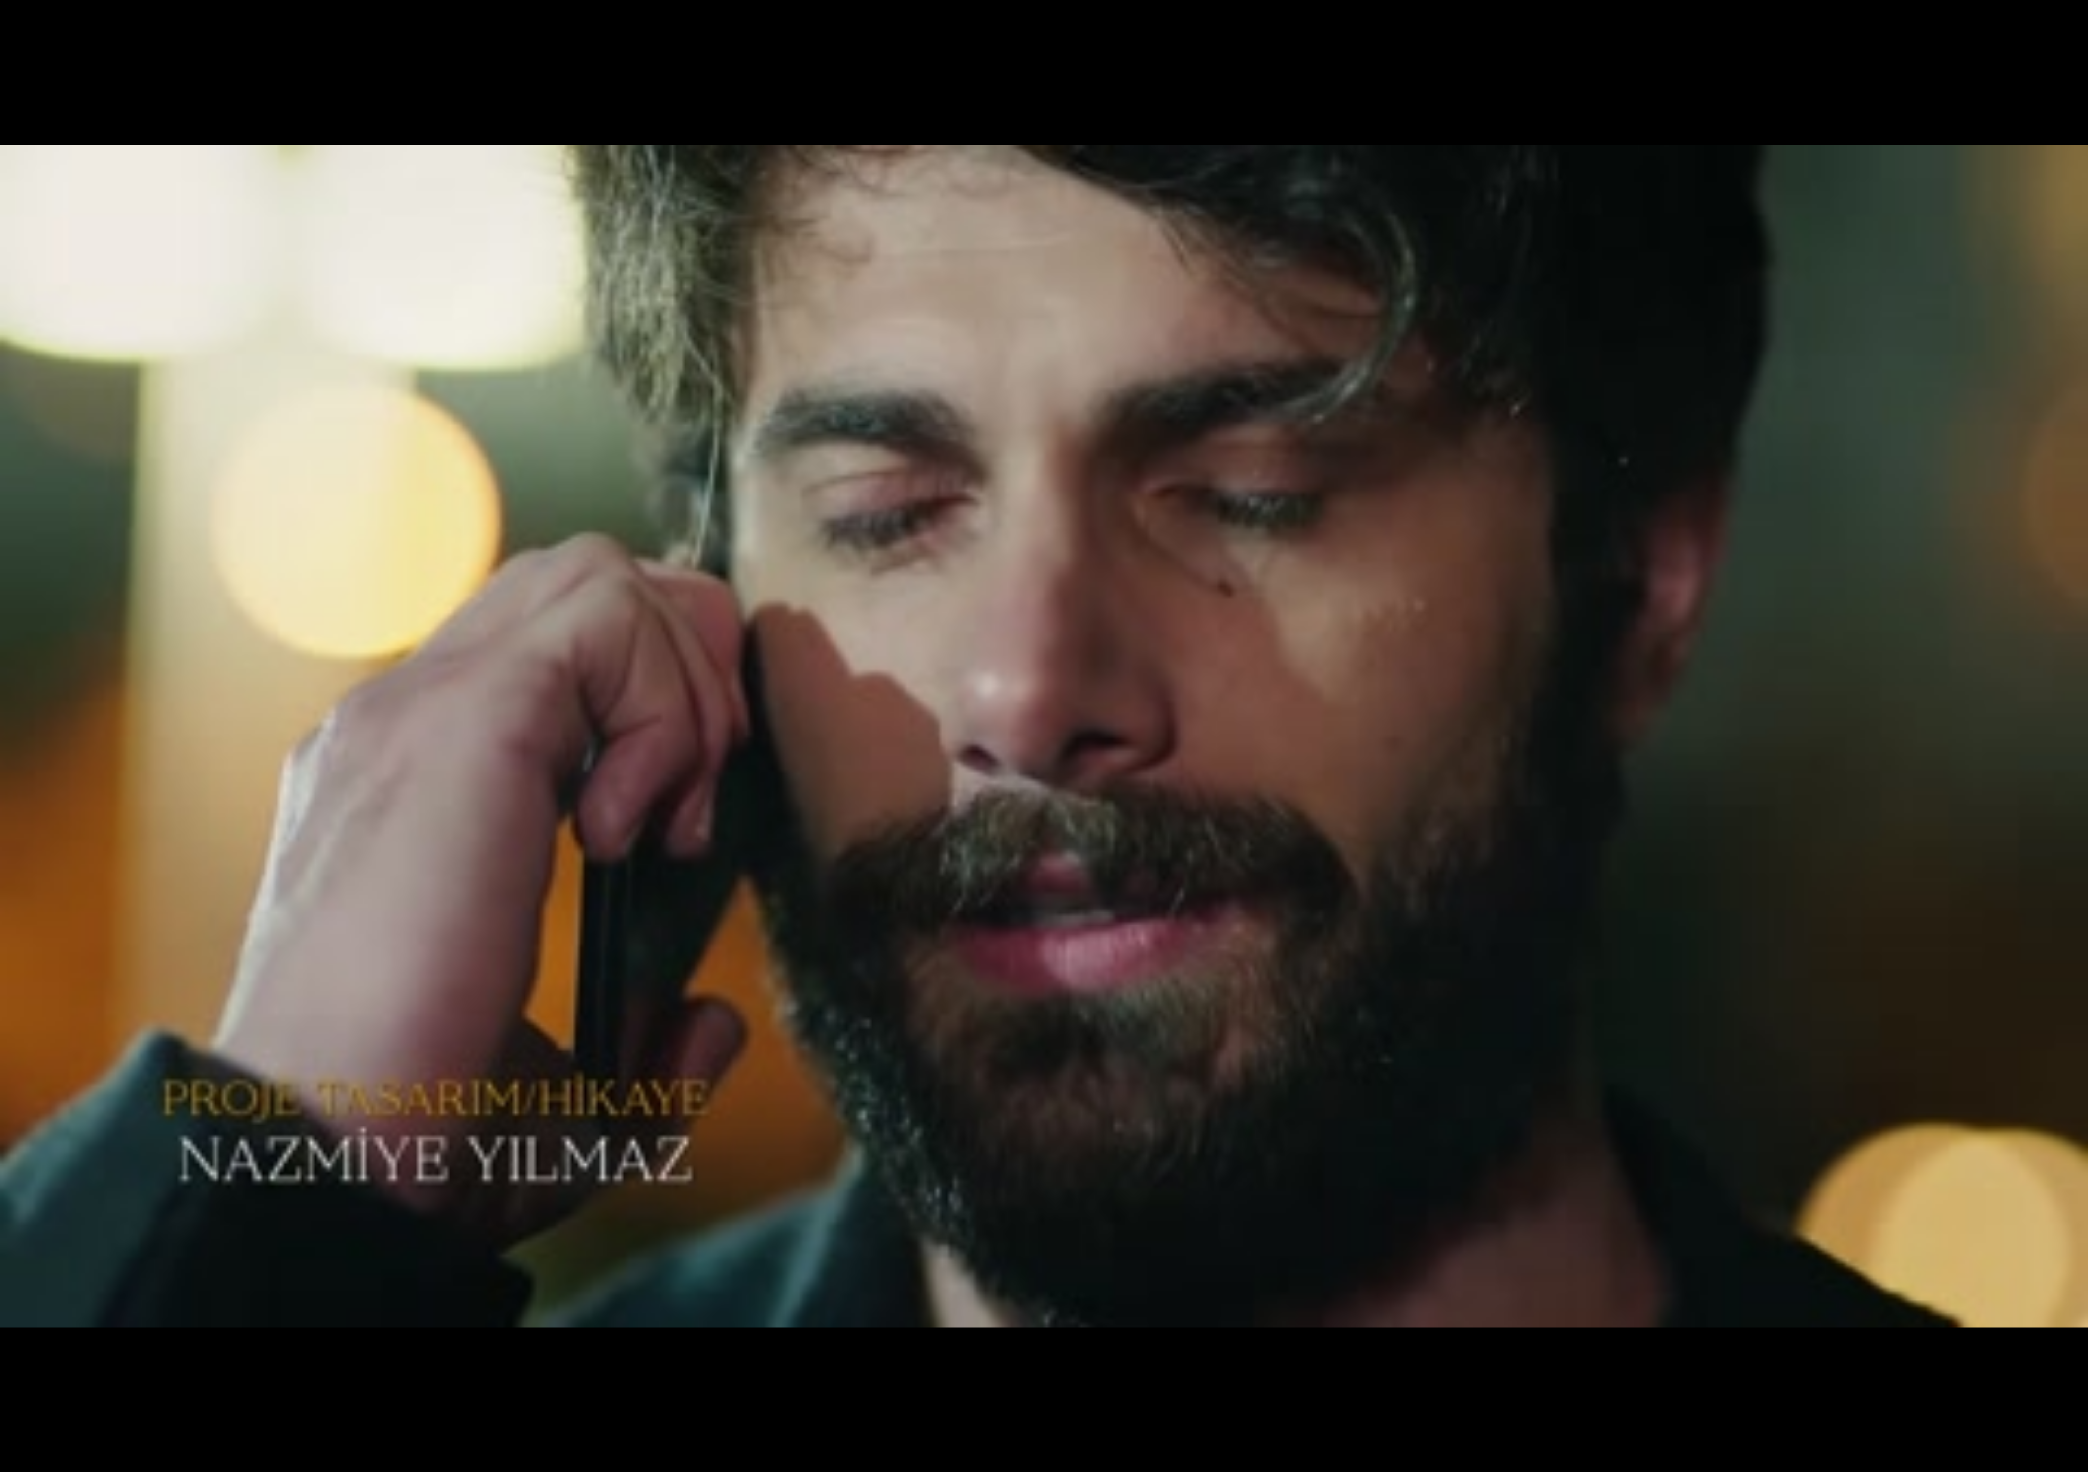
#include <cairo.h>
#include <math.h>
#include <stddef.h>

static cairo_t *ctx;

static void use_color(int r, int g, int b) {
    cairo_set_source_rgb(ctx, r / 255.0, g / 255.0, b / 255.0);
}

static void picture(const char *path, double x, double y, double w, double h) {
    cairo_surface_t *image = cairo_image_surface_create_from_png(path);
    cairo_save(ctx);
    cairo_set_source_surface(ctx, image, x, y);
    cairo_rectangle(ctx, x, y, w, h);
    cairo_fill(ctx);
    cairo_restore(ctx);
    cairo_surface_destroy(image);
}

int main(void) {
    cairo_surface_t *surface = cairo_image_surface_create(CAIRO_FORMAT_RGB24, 2088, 1472);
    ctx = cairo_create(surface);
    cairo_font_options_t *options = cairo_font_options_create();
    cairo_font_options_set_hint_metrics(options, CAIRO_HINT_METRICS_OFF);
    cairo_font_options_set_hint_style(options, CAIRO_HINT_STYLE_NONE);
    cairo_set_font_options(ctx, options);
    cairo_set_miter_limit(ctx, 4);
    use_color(0, 0, 0);
    cairo_paint(ctx);
    picture("img1.png", 0, 145, 2088, 1183);
    cairo_surface_write_to_png(surface, "result.png");
    cairo_font_options_destroy(options);
    cairo_destroy(ctx);
    cairo_surface_destroy(surface);
    return 0;
}
